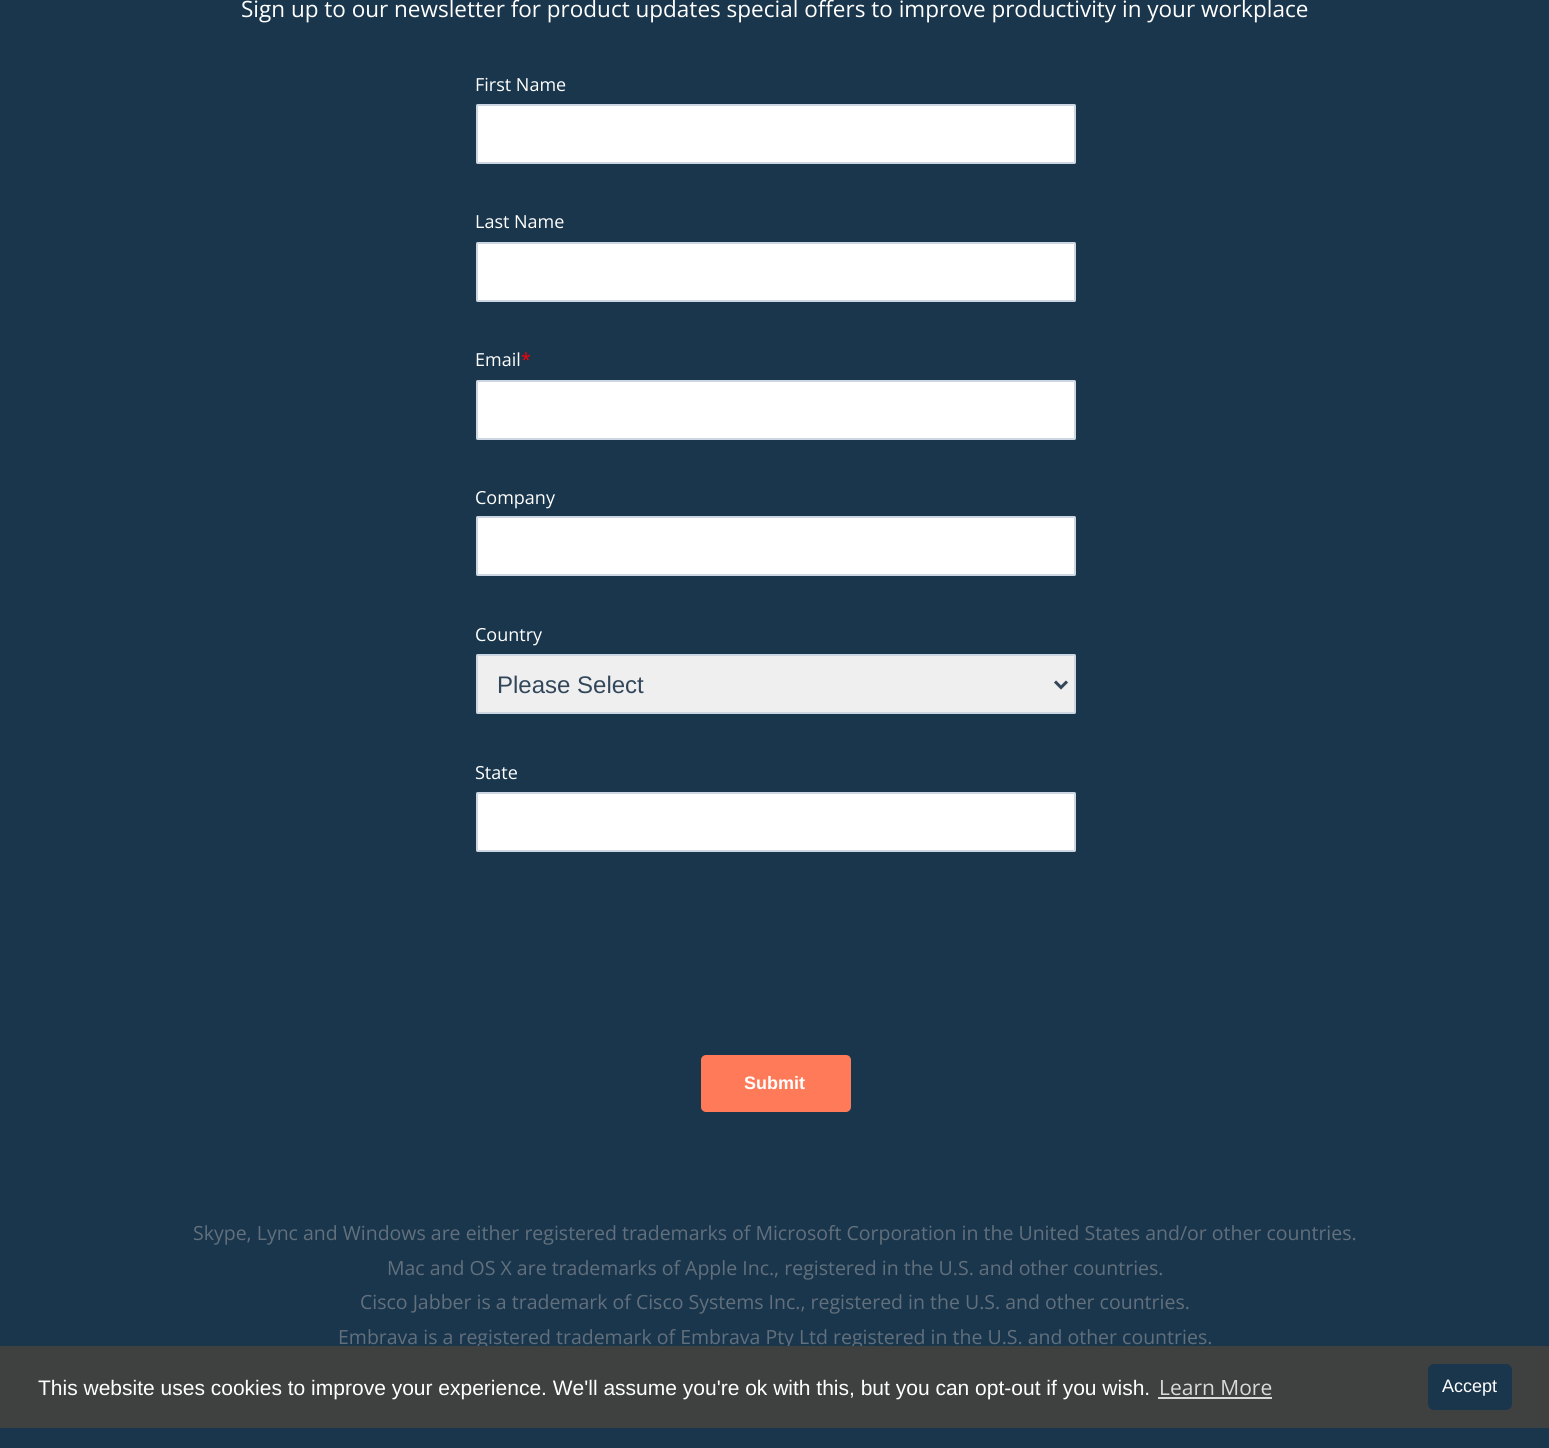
#include <cairo.h>
#include <math.h>
#include <stddef.h>

static cairo_t *ctx;

static void use_color(int r, int g, int b) {
    cairo_set_source_rgb(ctx, r / 255.0, g / 255.0, b / 255.0);
}

static void round_rect(double x, double y, double w, double h, double r) {
    cairo_new_sub_path(ctx);
    cairo_arc(ctx, x + w - r, y + h - r, r, 0, M_PI / 2);
    cairo_arc(ctx, x + r, y + h - r, r, M_PI / 2, M_PI);
    cairo_arc(ctx, x + r, y + r, r, M_PI, 1.5 * M_PI);
    cairo_arc(ctx, x + w - r, y + r, r, 1.5 * M_PI, 2 * M_PI);
    cairo_close_path(ctx);
}

int main(void) {
    cairo_surface_t *surface = cairo_image_surface_create(CAIRO_FORMAT_RGB24, 1549, 1448);
    ctx = cairo_create(surface);
    cairo_font_options_t *options = cairo_font_options_create();
    cairo_font_options_set_hint_metrics(options, CAIRO_HINT_METRICS_OFF);
    cairo_font_options_set_hint_style(options, CAIRO_HINT_STYLE_NONE);
    cairo_set_font_options(ctx, options);
    cairo_set_miter_limit(ctx, 4);
    use_color(26, 54, 76);
    cairo_paint(ctx);
    cairo_select_font_face(ctx, "Open Sans", CAIRO_FONT_SLANT_NORMAL, CAIRO_FONT_WEIGHT_NORMAL);
    cairo_set_font_size(ctx, 22.5);
    use_color(255, 255, 255);
    cairo_move_to(ctx, 241, 17);
    cairo_show_text(ctx, "Sign up to our newsletter for product updates special offers to improve productivity in your workplace");
    cairo_set_font_size(ctx, 18);
    cairo_move_to(ctx, 475, 91);
    cairo_show_text(ctx, "First Name");
    round_rect(477, 105, 598, 58, 0.5);
    cairo_fill_preserve(ctx);
    use_color(203, 214, 226);
    cairo_stroke(ctx);
    use_color(255, 255, 255);
    cairo_move_to(ctx, 475, 228);
    cairo_show_text(ctx, "Last Name");
    round_rect(477, 243, 598, 58, 0.5);
    cairo_fill_preserve(ctx);
    use_color(203, 214, 226);
    cairo_stroke(ctx);
    use_color(255, 255, 255);
    cairo_move_to(ctx, 475, 366);
    cairo_show_text(ctx, "Email");
    use_color(255, 0, 0);
    cairo_move_to(ctx, 521, 366);
    cairo_show_text(ctx, "*");
    use_color(255, 255, 255);
    round_rect(477, 381, 598, 58, 0.5);
    cairo_fill_preserve(ctx);
    use_color(203, 214, 226);
    cairo_stroke(ctx);
    use_color(255, 255, 255);
    cairo_move_to(ctx, 475, 504);
    cairo_show_text(ctx, "Company");
    round_rect(477, 517, 598, 58, 0.5);
    cairo_fill_preserve(ctx);
    use_color(203, 214, 226);
    cairo_stroke(ctx);
    use_color(255, 255, 255);
    cairo_move_to(ctx, 475, 641);
    cairo_show_text(ctx, "Country");
    use_color(239, 239, 239);
    round_rect(477, 655, 598, 58, 0.5);
    cairo_fill_preserve(ctx);
    use_color(203, 214, 226);
    cairo_stroke(ctx);
    cairo_new_path(ctx);
    cairo_move_to(ctx, 1055, 681.5);
    cairo_line_to(ctx, 1061, 687.5);
    cairo_line_to(ctx, 1067, 681.5);
    use_color(51, 71, 91);
    cairo_set_line_width(ctx, 3);
    cairo_stroke(ctx);
    cairo_select_font_face(ctx, "Liberation Sans", CAIRO_FONT_SLANT_NORMAL, CAIRO_FONT_WEIGHT_NORMAL);
    cairo_set_font_size(ctx, 24);
    cairo_move_to(ctx, 497, 693);
    cairo_show_text(ctx, "Please Select");
    cairo_select_font_face(ctx, "Open Sans", CAIRO_FONT_SLANT_NORMAL, CAIRO_FONT_WEIGHT_NORMAL);
    cairo_set_font_size(ctx, 18);
    use_color(255, 255, 255);
    cairo_move_to(ctx, 475, 779);
    cairo_show_text(ctx, "State");
    round_rect(477, 793, 598, 58, 0.5);
    cairo_fill_preserve(ctx);
    use_color(203, 214, 226);
    cairo_set_line_width(ctx, 2);
    cairo_stroke(ctx);
    use_color(255, 122, 89);
    round_rect(702, 1056, 148, 55, 4);
    cairo_fill_preserve(ctx);
    cairo_stroke(ctx);
    cairo_select_font_face(ctx, "Liberation Sans", CAIRO_FONT_SLANT_NORMAL, CAIRO_FONT_WEIGHT_BOLD);
    use_color(255, 255, 255);
    cairo_move_to(ctx, 744, 1089);
    cairo_show_text(ctx, "Submit");
    cairo_select_font_face(ctx, "Open Sans", CAIRO_FONT_SLANT_NORMAL, CAIRO_FONT_WEIGHT_NORMAL);
    cairo_set_font_size(ctx, 19.5);
    use_color(98, 111, 124);
    cairo_move_to(ctx, 193, 1240);
    cairo_show_text(ctx, "Skype, Lync and Windows are either registered trademarks of Microsoft Corporation in the United States and/or other countries.");
    cairo_move_to(ctx, 387, 1275);
    cairo_show_text(ctx, "Mac and OS X are trademarks of Apple Inc., registered in the U.S. and other countries.");
    cairo_move_to(ctx, 360, 1309);
    cairo_show_text(ctx, "Cisco Jabber is a trademark of Cisco Systems Inc., registered in the U.S. and other countries.");
    cairo_move_to(ctx, 338, 1344);
    cairo_show_text(ctx, "Embrava is a registered trademark of Embrava Pty Ltd registered in the U.S. and other countries.");
    use_color(63, 64, 64);
    cairo_rectangle(ctx, 0, 1346, 1549, 82);
    cairo_fill(ctx);
    cairo_select_font_face(ctx, "Liberation Sans", CAIRO_FONT_SLANT_NORMAL, CAIRO_FONT_WEIGHT_NORMAL);
    cairo_set_font_size(ctx, 21);
    use_color(255, 255, 255);
    cairo_move_to(ctx, 38, 1395);
    cairo_show_text(ctx, "This website uses cookies to improve your experience. We'll assume you're ok with this, but you can opt-out if you wish.");
    cairo_select_font_face(ctx, "Open Sans", CAIRO_FONT_SLANT_NORMAL, CAIRO_FONT_WEIGHT_NORMAL);
    use_color(217, 217, 217);
    cairo_move_to(ctx, 1159, 1395);
    cairo_show_text(ctx, "Learn More");
    cairo_rectangle(ctx, 1158, 1397, 114, 2);
    cairo_fill(ctx);
    use_color(26, 54, 76);
    round_rect(1428, 1364, 84, 46, 6);
    cairo_fill(ctx);
    cairo_select_font_face(ctx, "Liberation Sans", CAIRO_FONT_SLANT_NORMAL, CAIRO_FONT_WEIGHT_NORMAL);
    cairo_set_font_size(ctx, 18);
    use_color(255, 255, 255);
    cairo_move_to(ctx, 1442, 1392);
    cairo_show_text(ctx, "Accept");
    cairo_surface_write_to_png(surface, "result.png");
    cairo_font_options_destroy(options);
    cairo_destroy(ctx);
    cairo_surface_destroy(surface);
    return 0;
}
